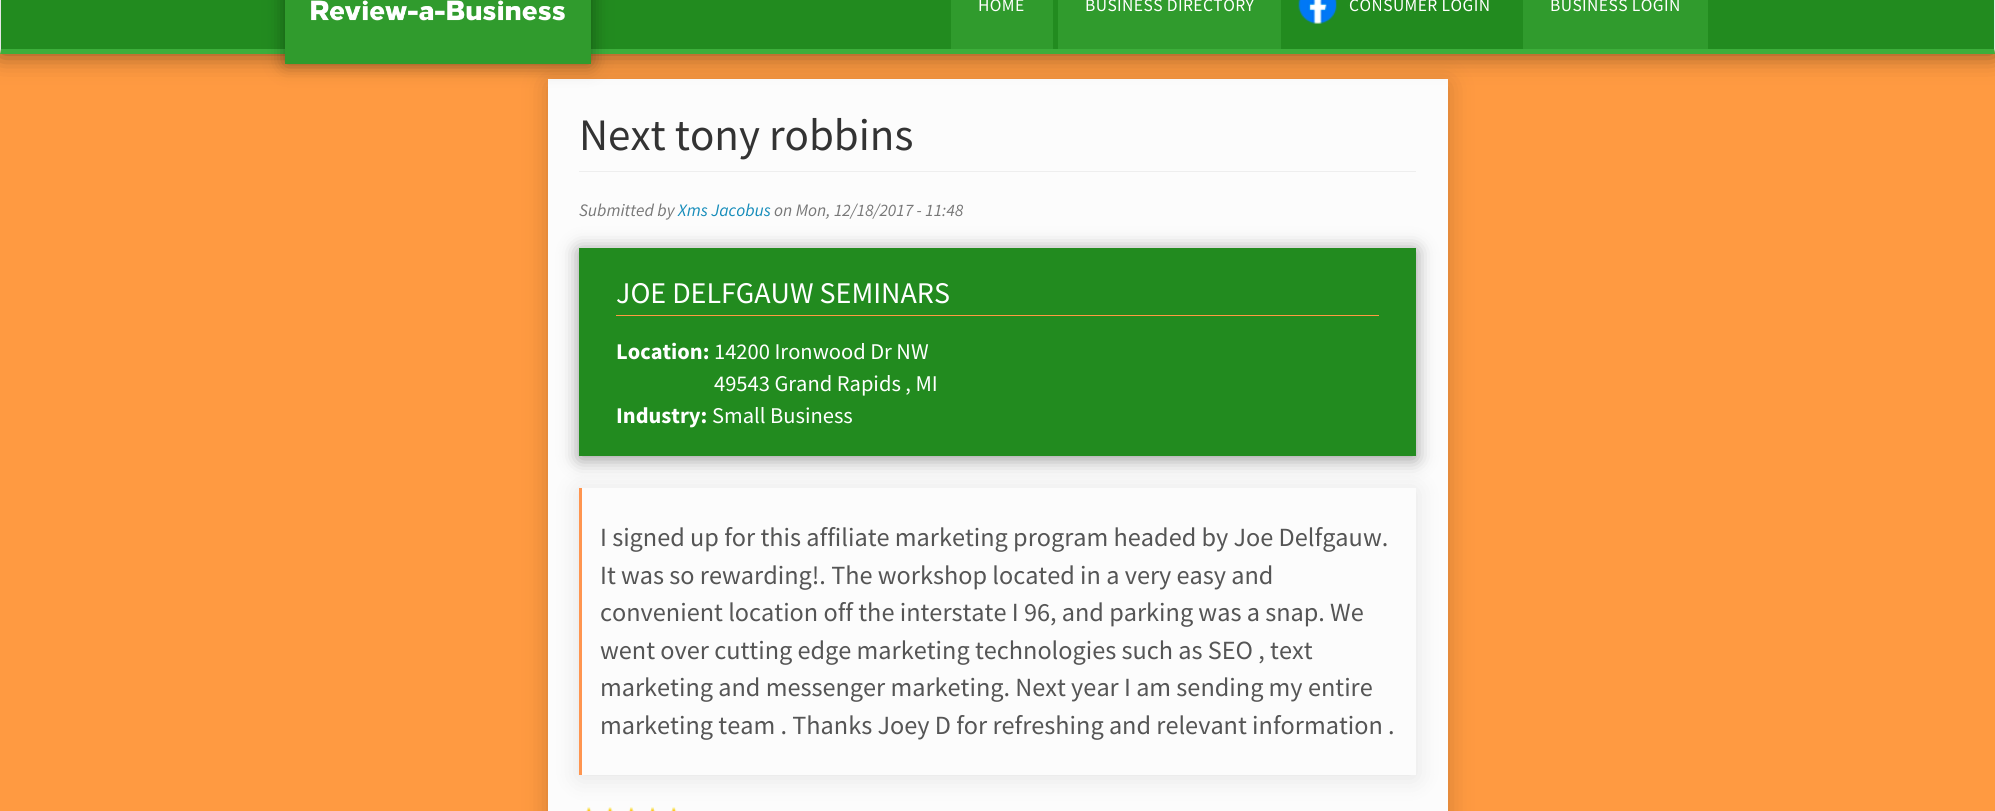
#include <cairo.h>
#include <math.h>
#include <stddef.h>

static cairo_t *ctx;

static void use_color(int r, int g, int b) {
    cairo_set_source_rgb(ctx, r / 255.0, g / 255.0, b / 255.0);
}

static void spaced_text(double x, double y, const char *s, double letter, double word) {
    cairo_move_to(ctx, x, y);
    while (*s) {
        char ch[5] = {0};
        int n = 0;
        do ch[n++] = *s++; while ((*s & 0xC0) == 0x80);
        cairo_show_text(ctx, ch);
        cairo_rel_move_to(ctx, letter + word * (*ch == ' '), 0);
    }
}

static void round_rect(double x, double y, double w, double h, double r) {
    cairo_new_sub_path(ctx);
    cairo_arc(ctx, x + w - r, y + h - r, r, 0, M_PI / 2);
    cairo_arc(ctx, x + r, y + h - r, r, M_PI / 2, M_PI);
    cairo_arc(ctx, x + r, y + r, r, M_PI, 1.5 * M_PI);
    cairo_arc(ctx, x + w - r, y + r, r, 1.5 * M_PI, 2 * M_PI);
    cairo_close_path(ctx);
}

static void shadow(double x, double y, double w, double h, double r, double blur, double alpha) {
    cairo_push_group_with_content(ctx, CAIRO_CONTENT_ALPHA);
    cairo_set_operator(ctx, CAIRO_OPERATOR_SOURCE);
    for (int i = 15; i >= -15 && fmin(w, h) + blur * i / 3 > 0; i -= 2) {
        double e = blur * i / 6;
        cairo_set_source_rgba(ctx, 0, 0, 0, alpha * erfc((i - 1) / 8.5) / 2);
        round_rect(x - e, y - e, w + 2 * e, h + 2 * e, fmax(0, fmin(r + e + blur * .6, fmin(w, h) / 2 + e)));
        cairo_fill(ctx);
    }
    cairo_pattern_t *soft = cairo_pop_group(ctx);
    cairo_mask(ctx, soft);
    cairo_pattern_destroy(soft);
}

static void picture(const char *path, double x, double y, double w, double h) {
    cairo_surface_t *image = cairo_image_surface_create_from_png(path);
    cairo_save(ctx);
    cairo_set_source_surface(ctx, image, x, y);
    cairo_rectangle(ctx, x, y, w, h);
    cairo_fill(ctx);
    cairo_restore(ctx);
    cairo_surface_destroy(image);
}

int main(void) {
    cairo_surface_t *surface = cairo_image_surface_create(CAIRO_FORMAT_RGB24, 1995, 811);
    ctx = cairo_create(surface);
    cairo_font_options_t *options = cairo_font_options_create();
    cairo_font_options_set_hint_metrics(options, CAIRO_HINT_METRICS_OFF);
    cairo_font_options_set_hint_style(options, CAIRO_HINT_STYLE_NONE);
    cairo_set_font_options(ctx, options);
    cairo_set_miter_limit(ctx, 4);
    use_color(255, 154, 65);
    cairo_paint(ctx);
    use_color(0, 0, 0);
    shadow(548, 84, 900, 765, 0, 12.5, 0.2);
    use_color(252, 252, 252);
    cairo_rectangle(ctx, 548, 79, 900, 732);
    cairo_fill(ctx);
    use_color(0, 0, 0);
    shadow(0, -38, 1995, 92, 0, 12.5, 0.5);
    use_color(34, 139, 31);
    cairo_rectangle(ctx, 1, 0, 1993, 49);
    cairo_fill(ctx);
    use_color(231, 231, 231);
    cairo_new_path(ctx);
    cairo_move_to(ctx, 1995, -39);
    cairo_line_to(ctx, 1995, 54);
    cairo_line_to(ctx, 1994, 49);
    cairo_line_to(ctx, 1994, -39);
    cairo_close_path(ctx);
    cairo_fill(ctx);
    use_color(61, 174, 59);
    cairo_new_path(ctx);
    cairo_move_to(ctx, 1995, 54);
    cairo_line_to(ctx, 0, 54);
    cairo_line_to(ctx, 1, 49);
    cairo_line_to(ctx, 1994, 49);
    cairo_close_path(ctx);
    cairo_fill(ctx);
    use_color(231, 231, 231);
    cairo_new_path(ctx);
    cairo_move_to(ctx, 0, 54);
    cairo_line_to(ctx, 0, -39);
    cairo_line_to(ctx, 1, -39);
    cairo_line_to(ctx, 1, 49);
    cairo_close_path(ctx);
    cairo_fill(ctx);
    use_color(0, 0, 0);
    shadow(285, -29, 306, 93, 0, 9.5, 0.4);
    use_color(48, 155, 45);
    cairo_rectangle(ctx, 285, 0, 306, 64);
    cairo_fill(ctx);
    picture("img1.png", 311, 0, 254, 21);
    cairo_rectangle(ctx, 951, 0, 102, 49);
    cairo_fill(ctx);
    cairo_select_font_face(ctx, "Source Sans Pro", CAIRO_FONT_SLANT_NORMAL, CAIRO_FONT_WEIGHT_NORMAL);
    cairo_set_font_size(ctx, 17.5);
    use_color(255, 255, 255);
    spaced_text(978, 11, "HOME", 0.4, 0);
    use_color(48, 155, 45);
    cairo_rectangle(ctx, 1058, 0, 223, 49);
    cairo_fill(ctx);
    use_color(255, 255, 255);
    spaced_text(1085, 11, "BUSINESS DIRECTORY", 0.4, 0);
    picture("img2.png", 1298, 0, 39, 24);
    spaced_text(1349, 11, "CONSUMER LOGIN", 0.4, 0);
    use_color(48, 155, 45);
    cairo_rectangle(ctx, 1523, 0, 185, 49);
    cairo_fill(ctx);
    use_color(255, 255, 255);
    spaced_text(1550, 11, "BUSINESS LOGIN", 0.4, 0);
    use_color(238, 238, 238);
    cairo_rectangle(ctx, 579, 171, 837, 1);
    cairo_fill(ctx);
    cairo_set_font_size(ctx, 45);
    use_color(51, 51, 51);
    cairo_move_to(ctx, 579, 150);
    cairo_show_text(ctx, "Next tony robbins");
    cairo_select_font_face(ctx, "Source Sans Pro", CAIRO_FONT_SLANT_ITALIC, CAIRO_FONT_WEIGHT_NORMAL);
    cairo_set_font_size(ctx, 17.5);
    use_color(119, 119, 119);
    cairo_move_to(ctx, 579, 216);
    cairo_show_text(ctx, "Submitted by");
    use_color(21, 140, 186);
    cairo_move_to(ctx, 678, 216);
    cairo_show_text(ctx, "Xms Jacobus");
    use_color(119, 119, 119);
    cairo_move_to(ctx, 774, 216);
    cairo_show_text(ctx, "on Mon, 12/18/2017 - 11:48");
    cairo_save(ctx);
    cairo_set_fill_rule(ctx, CAIRO_FILL_RULE_EVEN_ODD);
    cairo_new_path(ctx);
    cairo_move_to(ctx, 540, 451);
    cairo_line_to(ctx, 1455, 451);
    cairo_line_to(ctx, 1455, 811);
    cairo_line_to(ctx, 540, 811);
    cairo_close_path(ctx);
    cairo_move_to(ctx, 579, 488);
    cairo_line_to(ctx, 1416, 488);
    cairo_line_to(ctx, 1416, 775);
    cairo_line_to(ctx, 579, 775);
    cairo_close_path(ctx);
    cairo_clip(ctx);
    use_color(0, 0, 0);
    shadow(579, 490, 837, 288, 0, 12.5, 0.1);
    cairo_restore(ctx);
    use_color(255, 149, 79);
    cairo_rectangle(ctx, 579, 488, 3, 287);
    cairo_fill(ctx);
    use_color(0, 0, 0);
    shadow(579, 250, 837, 209, 0, 9.5, 0.4);
    use_color(34, 139, 31);
    cairo_rectangle(ctx, 579, 248, 837, 208);
    cairo_fill(ctx);
    use_color(255, 154, 65);
    cairo_rectangle(ctx, 616, 315, 763, 1);
    cairo_fill(ctx);
    cairo_select_font_face(ctx, "Source Sans Pro", CAIRO_FONT_SLANT_NORMAL, CAIRO_FONT_WEIGHT_NORMAL);
    cairo_set_font_size(ctx, 30);
    use_color(255, 255, 255);
    cairo_move_to(ctx, 616, 303);
    cairo_show_text(ctx, "JOE DELFGAUW SEMINARS");
    cairo_select_font_face(ctx, "Source Sans Pro", CAIRO_FONT_SLANT_NORMAL, CAIRO_FONT_WEIGHT_BOLD);
    cairo_set_font_size(ctx, 22.5);
    cairo_move_to(ctx, 616, 359);
    cairo_show_text(ctx, "Location:");
    cairo_select_font_face(ctx, "Source Sans Pro", CAIRO_FONT_SLANT_NORMAL, CAIRO_FONT_WEIGHT_NORMAL);
    cairo_move_to(ctx, 714, 359);
    cairo_show_text(ctx, "14200 Ironwood Dr NW");
    cairo_move_to(ctx, 714, 391);
    cairo_show_text(ctx, "49543 Grand Rapids , MI");
    cairo_select_font_face(ctx, "Source Sans Pro", CAIRO_FONT_SLANT_NORMAL, CAIRO_FONT_WEIGHT_BOLD);
    cairo_move_to(ctx, 616, 423);
    cairo_show_text(ctx, "Industry:");
    cairo_select_font_face(ctx, "Source Sans Pro", CAIRO_FONT_SLANT_NORMAL, CAIRO_FONT_WEIGHT_NORMAL);
    cairo_move_to(ctx, 712, 423);
    cairo_show_text(ctx, "Small Business");
    cairo_set_font_size(ctx, 26.25);
    use_color(85, 85, 85);
    cairo_move_to(ctx, 600, 546);
    cairo_show_text(ctx, "I signed up for this affiliate marketing program headed by Joe Delfgauw.");
    cairo_move_to(ctx, 600, 584);
    cairo_show_text(ctx, "It was so rewarding!. The workshop located in a very easy and");
    cairo_move_to(ctx, 600, 621);
    cairo_show_text(ctx, "convenient location off the interstate I 96, and parking was a snap. We");
    cairo_move_to(ctx, 600, 659);
    cairo_show_text(ctx, "went over cutting edge marketing technologies such as SEO , text");
    cairo_move_to(ctx, 600, 696);
    cairo_show_text(ctx, "marketing and messenger marketing. Next year I am sending my entire");
    cairo_move_to(ctx, 600, 734);
    cairo_show_text(ctx, "marketing team . Thanks Joey D for refreshing and relevant information .");
    picture("img3.png", 587, 807, 4, 3);
    picture("img4.png", 586, 807, 6, 4);
    picture("img5.png", 608, 807, 5, 4);
    picture("img6.png", 607, 807, 6, 4);
    picture("img7.png", 629, 807, 5, 4);
    picture("img8.png", 628, 807, 6, 4);
    picture("img9.png", 651, 807, 4, 4);
    picture("img10.png", 650, 807, 6, 4);
    picture("img11.png", 672, 807, 4, 3);
    picture("img12.png", 671, 807, 6, 4);
    cairo_surface_write_to_png(surface, "result.png");
    cairo_font_options_destroy(options);
    cairo_destroy(ctx);
    cairo_surface_destroy(surface);
    return 0;
}
